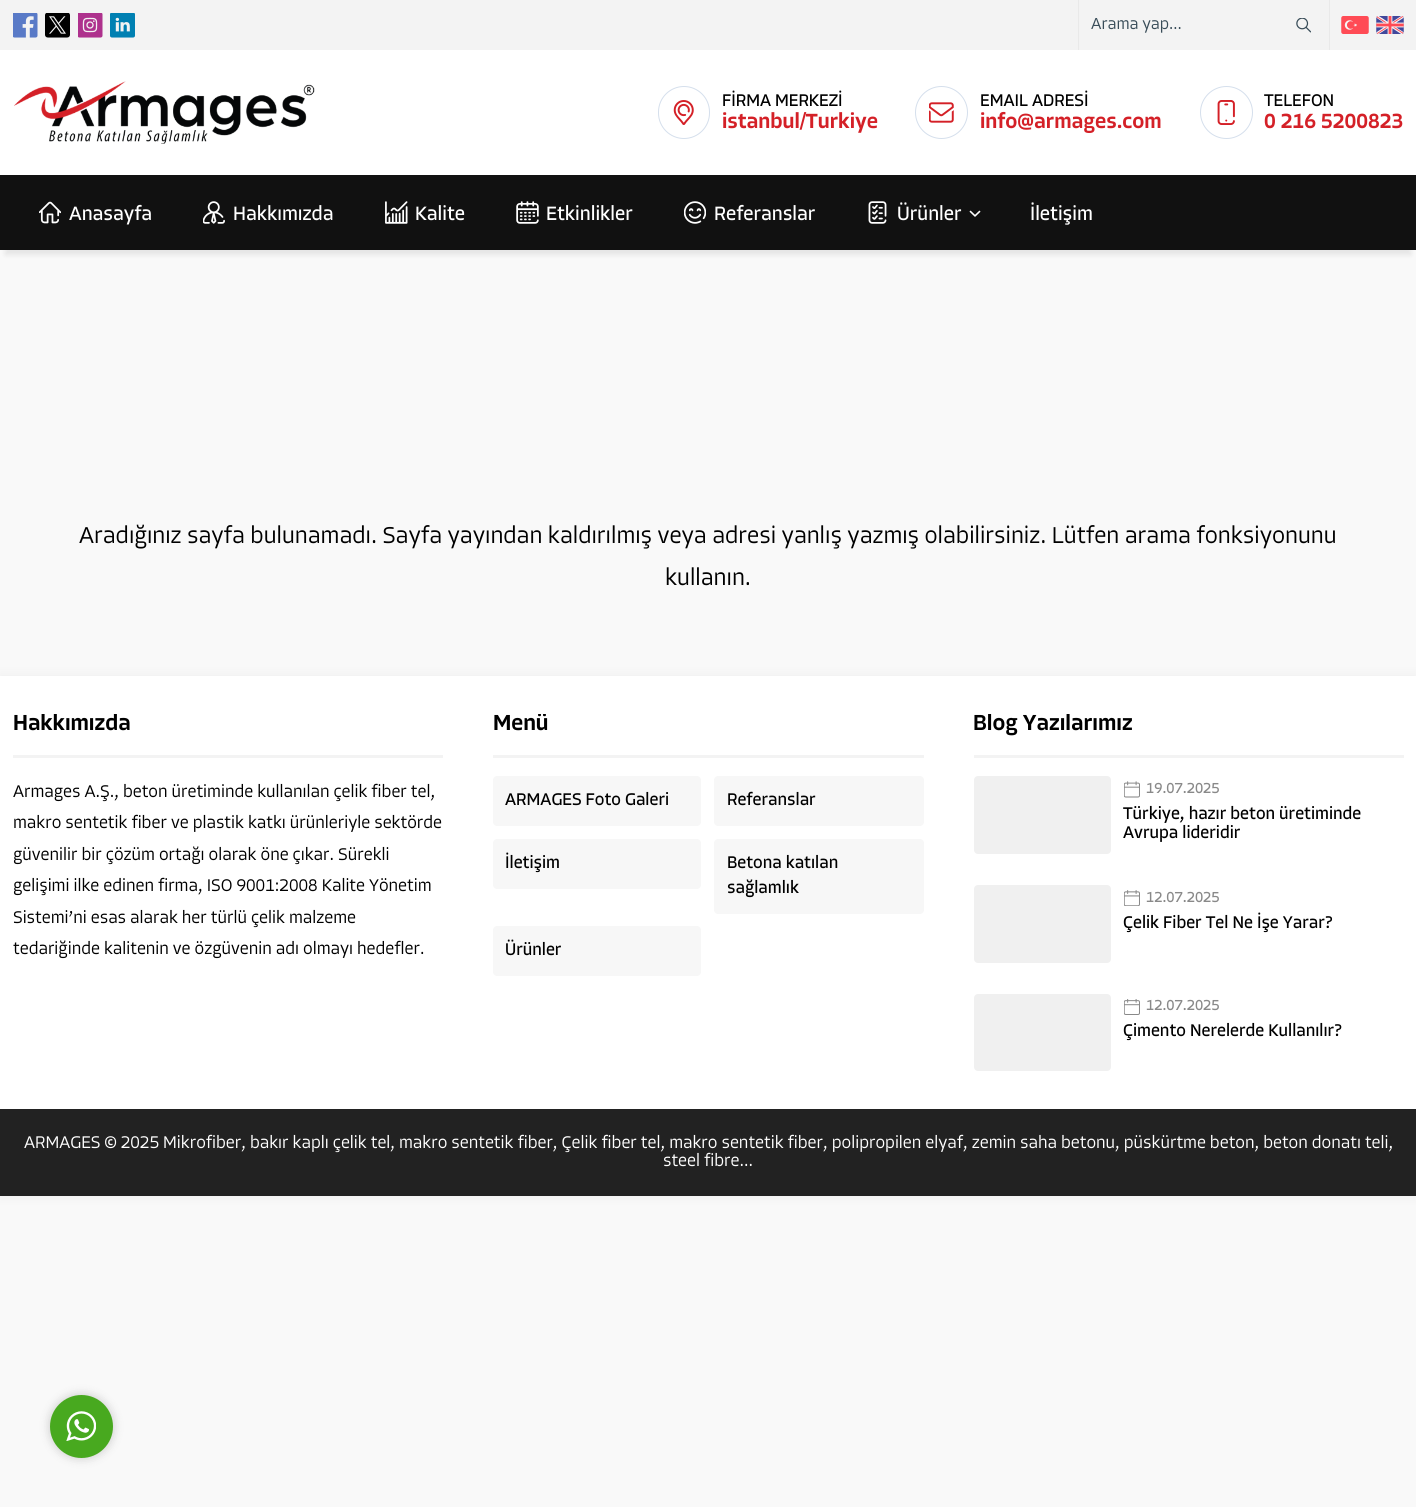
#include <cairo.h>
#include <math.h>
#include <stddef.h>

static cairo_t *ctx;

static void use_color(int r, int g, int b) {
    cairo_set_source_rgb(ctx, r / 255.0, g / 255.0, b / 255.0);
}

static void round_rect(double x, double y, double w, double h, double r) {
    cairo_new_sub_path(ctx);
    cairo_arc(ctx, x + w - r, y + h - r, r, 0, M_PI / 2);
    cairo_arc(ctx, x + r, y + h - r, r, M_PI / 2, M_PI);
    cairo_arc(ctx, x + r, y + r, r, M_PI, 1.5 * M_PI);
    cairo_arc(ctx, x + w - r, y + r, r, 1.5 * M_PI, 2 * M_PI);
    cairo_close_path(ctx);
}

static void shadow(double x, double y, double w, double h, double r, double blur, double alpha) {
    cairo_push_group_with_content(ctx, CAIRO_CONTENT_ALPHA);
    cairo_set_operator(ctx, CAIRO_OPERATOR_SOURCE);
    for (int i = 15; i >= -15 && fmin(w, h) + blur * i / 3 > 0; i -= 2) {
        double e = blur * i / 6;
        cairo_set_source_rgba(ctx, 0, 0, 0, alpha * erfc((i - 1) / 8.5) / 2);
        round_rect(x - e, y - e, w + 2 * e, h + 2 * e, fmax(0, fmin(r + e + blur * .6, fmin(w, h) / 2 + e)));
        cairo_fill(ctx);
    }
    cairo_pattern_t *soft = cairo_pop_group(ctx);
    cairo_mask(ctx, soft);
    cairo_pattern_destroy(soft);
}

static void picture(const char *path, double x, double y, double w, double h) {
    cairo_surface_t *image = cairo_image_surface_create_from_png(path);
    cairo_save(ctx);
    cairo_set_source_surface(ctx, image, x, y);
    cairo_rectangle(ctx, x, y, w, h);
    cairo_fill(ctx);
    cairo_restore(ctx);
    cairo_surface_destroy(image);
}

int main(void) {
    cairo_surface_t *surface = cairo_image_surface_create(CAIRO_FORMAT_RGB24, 1416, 1507);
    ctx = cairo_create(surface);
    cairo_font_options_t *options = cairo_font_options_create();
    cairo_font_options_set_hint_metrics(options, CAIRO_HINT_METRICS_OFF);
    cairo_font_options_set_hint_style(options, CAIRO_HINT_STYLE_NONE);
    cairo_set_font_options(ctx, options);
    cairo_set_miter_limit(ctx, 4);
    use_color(249, 249, 249);
    cairo_paint(ctx);
    use_color(243, 243, 243);
    cairo_rectangle(ctx, 0, 0, 1416, 50);
    cairo_fill(ctx);
    picture("img1.png", 13, 13, 25, 25);
    picture("img2.png", 45, 13, 25, 25);
    picture("img3.png", 78, 13, 25, 25);
    picture("img4.png", 110, 13, 25, 25);
    use_color(233, 233, 233);
    cairo_rectangle(ctx, 1329, 0, 1, 50);
    cairo_fill(ctx);
    cairo_rectangle(ctx, 1078, 0, 1, 50);
    cairo_fill(ctx);
    cairo_select_font_face(ctx, "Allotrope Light", CAIRO_FONT_SLANT_NORMAL, CAIRO_FONT_WEIGHT_NORMAL);
    cairo_set_font_size(ctx, 16.5);
    use_color(56, 76, 88);
    cairo_move_to(ctx, 1091, 29);
    cairo_show_text(ctx, "Arama yap...");
    picture("img5.png", 1296, 18, 15, 15);
    picture("img6.png", 1341, 16, 28, 18);
    picture("img7.png", 1376, 16, 28, 18);
    use_color(255, 255, 255);
    cairo_rectangle(ctx, 0, 50, 1416, 125);
    cairo_fill(ctx);
    picture("img8.png", 14, 81, 301, 63);
    round_rect(658.5, 86.5, 51, 52, 25.5);
    use_color(213, 223, 236);
    cairo_set_line_width(ctx, 1);
    cairo_stroke(ctx);
    picture("img9.png", 673, 100, 21, 25);
    cairo_select_font_face(ctx, "Allotrope", CAIRO_FONT_SLANT_NORMAL, CAIRO_FONT_WEIGHT_NORMAL);
    cairo_set_font_size(ctx, 17.5);
    use_color(0, 0, 0);
    cairo_move_to(ctx, 722, 106);
    cairo_show_text(ctx, "FİRMA MERKEZİ");
    cairo_select_font_face(ctx, "Allotrope Medium", CAIRO_FONT_SLANT_NORMAL, CAIRO_FONT_WEIGHT_NORMAL);
    cairo_set_font_size(ctx, 21.25);
    use_color(212, 32, 39);
    cairo_move_to(ctx, 722, 128);
    cairo_show_text(ctx, "istanbul/Turkiye");
    cairo_new_path(ctx);
    cairo_arc(ctx, 941.5, 112.5, 26, 0, 2 * M_PI);
    use_color(213, 223, 236);
    cairo_stroke(ctx);
    picture("img10.png", 929, 102, 25, 21);
    cairo_select_font_face(ctx, "Allotrope", CAIRO_FONT_SLANT_NORMAL, CAIRO_FONT_WEIGHT_NORMAL);
    cairo_set_font_size(ctx, 17.5);
    use_color(0, 0, 0);
    cairo_move_to(ctx, 980, 106);
    cairo_show_text(ctx, "EMAIL ADRESİ");
    cairo_select_font_face(ctx, "Allotrope Medium", CAIRO_FONT_SLANT_NORMAL, CAIRO_FONT_WEIGHT_NORMAL);
    cairo_set_font_size(ctx, 21.25);
    use_color(212, 32, 39);
    cairo_move_to(ctx, 980, 128);
    cairo_show_text(ctx, "info@armages.com");
    cairo_new_path(ctx);
    cairo_arc(ctx, 1226.5, 112.5, 26, 0, 2 * M_PI);
    use_color(213, 223, 236);
    cairo_stroke(ctx);
    picture("img11.png", 1217, 100, 18, 25);
    cairo_select_font_face(ctx, "Allotrope", CAIRO_FONT_SLANT_NORMAL, CAIRO_FONT_WEIGHT_NORMAL);
    cairo_set_font_size(ctx, 17.5);
    use_color(0, 0, 0);
    cairo_move_to(ctx, 1264, 106);
    cairo_show_text(ctx, "TELEFON");
    cairo_select_font_face(ctx, "Allotrope Medium", CAIRO_FONT_SLANT_NORMAL, CAIRO_FONT_WEIGHT_NORMAL);
    cairo_set_font_size(ctx, 21.25);
    use_color(212, 32, 39);
    cairo_move_to(ctx, 1264, 128);
    cairo_show_text(ctx, "0 216 5200823");
    use_color(0, 0, 0);
    shadow(5, 190, 1406, 65, 0, 2.5, 0.08);
    use_color(17, 17, 17);
    cairo_rectangle(ctx, 0, 175, 1416, 75);
    cairo_fill(ctx);
    picture("img12.png", 39, 201, 22, 23);
    cairo_select_font_face(ctx, "Allotrope", CAIRO_FONT_SLANT_NORMAL, CAIRO_FONT_WEIGHT_NORMAL);
    cairo_set_font_size(ctx, 20);
    use_color(255, 255, 255);
    cairo_move_to(ctx, 69, 220);
    cairo_show_text(ctx, "Anasayfa");
    picture("img13.png", 203, 201, 22, 23);
    cairo_move_to(ctx, 233, 220);
    cairo_show_text(ctx, "Hakkımızda");
    picture("img14.png", 385, 201, 23, 23);
    cairo_move_to(ctx, 415, 220);
    cairo_show_text(ctx, "Kalite");
    picture("img15.png", 516, 201, 23, 23);
    cairo_move_to(ctx, 546, 220);
    cairo_show_text(ctx, "Etkinlikler");
    picture("img16.png", 684, 201, 22, 23);
    cairo_move_to(ctx, 714, 220);
    cairo_show_text(ctx, "Referanslar");
    picture("img17.png", 868, 201, 19, 23);
    cairo_move_to(ctx, 897, 220);
    cairo_show_text(ctx, "Ürünler");
    picture("img18.png", 969, 210, 12, 7);
    cairo_move_to(ctx, 1030, 220);
    cairo_show_text(ctx, "İletişim");
    cairo_select_font_face(ctx, "Allotrope Light", CAIRO_FONT_SLANT_NORMAL, CAIRO_FONT_WEIGHT_NORMAL);
    cairo_set_font_size(ctx, 23.75);
    use_color(0, 0, 0);
    cairo_move_to(ctx, 79, 543);
    cairo_show_text(ctx, "Aradığınız sayfa bulunamadı. Sayfa yayından kaldırılmış veya adresi yanlış yazmış olabilirsiniz. Lütfen arama fonksiyonunu");
    cairo_move_to(ctx, 665, 585);
    cairo_show_text(ctx, "kullanın.");
    use_color(0, 0, 0);
    shadow(0, 676, 1416, 520, 0, 6, 0.05);
    use_color(255, 255, 255);
    cairo_rectangle(ctx, 0, 676, 1416, 433);
    cairo_fill(ctx);
    use_color(243, 243, 243);
    cairo_rectangle(ctx, 13, 755, 430, 3);
    cairo_fill(ctx);
    cairo_save(ctx);
    cairo_rectangle(ctx, 0, 714, 1416, 357);
    cairo_clip(ctx);
    cairo_select_font_face(ctx, "Allotrope Medium", CAIRO_FONT_SLANT_NORMAL, CAIRO_FONT_WEIGHT_NORMAL);
    cairo_set_font_size(ctx, 22.5);
    use_color(0, 0, 0);
    cairo_move_to(ctx, 13, 730);
    cairo_show_text(ctx, "Hakkımızda");
    cairo_restore(ctx);
    cairo_set_font_size(ctx, 17.5);
    use_color(0, 0, 0);
    cairo_move_to(ctx, 13, 797);
    cairo_show_text(ctx, "Armages A.Ş., beton üretiminde kullanılan çelik fiber tel,");
    cairo_move_to(ctx, 13, 828);
    cairo_show_text(ctx, "makro sentetik fiber ve plastik katkı ürünleriyle sektörde");
    cairo_move_to(ctx, 13, 860);
    cairo_show_text(ctx, "güvenilir bir çözüm ortağı olarak öne çıkar. Sürekli");
    cairo_move_to(ctx, 13, 891);
    cairo_show_text(ctx, "gelişimi ilke edinen firma, ISO 9001:2008 Kalite Yönetim");
    cairo_move_to(ctx, 13, 923);
    cairo_show_text(ctx, "Sistemi’ni esas alarak her türlü çelik malzeme");
    cairo_move_to(ctx, 13, 954);
    cairo_show_text(ctx, "tedariğinde kalitenin ve özgüvenin adı olmayı hedefler.");
    use_color(243, 243, 243);
    cairo_rectangle(ctx, 493, 755, 431, 3);
    cairo_fill(ctx);
    cairo_save(ctx);
    cairo_rectangle(ctx, 0, 714, 1416, 357);
    cairo_clip(ctx);
    cairo_select_font_face(ctx, "Allotrope Medium", CAIRO_FONT_SLANT_NORMAL, CAIRO_FONT_WEIGHT_NORMAL);
    cairo_set_font_size(ctx, 22.5);
    use_color(0, 0, 0);
    cairo_move_to(ctx, 493, 730);
    cairo_show_text(ctx, "Menü");
    cairo_restore(ctx);
    use_color(247, 247, 247);
    round_rect(493, 776, 208, 50, 4);
    cairo_fill(ctx);
    cairo_select_font_face(ctx, "Allotrope", CAIRO_FONT_SLANT_NORMAL, CAIRO_FONT_WEIGHT_NORMAL);
    use_color(0, 0, 0);
    cairo_move_to(ctx, 505, 805);
    cairo_show_text(ctx, "ARMAGES Foto Galeri");
    use_color(247, 247, 247);
    round_rect(714, 776, 210, 50, 4);
    cairo_fill(ctx);
    use_color(0, 0, 0);
    cairo_move_to(ctx, 727, 805);
    cairo_show_text(ctx, "Referanslar");
    use_color(247, 247, 247);
    round_rect(493, 839, 208, 50, 4);
    cairo_fill(ctx);
    use_color(0, 0, 0);
    cairo_move_to(ctx, 505, 868);
    cairo_show_text(ctx, "İletişim");
    use_color(247, 247, 247);
    round_rect(714, 839, 210, 75, 4);
    cairo_fill(ctx);
    use_color(0, 0, 0);
    cairo_move_to(ctx, 727, 868);
    cairo_show_text(ctx, "Betona katılan");
    cairo_move_to(ctx, 727, 893);
    cairo_show_text(ctx, "sağlamlık");
    use_color(247, 247, 247);
    round_rect(493, 926, 208, 50, 4);
    cairo_fill(ctx);
    use_color(0, 0, 0);
    cairo_move_to(ctx, 505, 955);
    cairo_show_text(ctx, "Ürünler");
    use_color(243, 243, 243);
    cairo_rectangle(ctx, 974, 755, 430, 3);
    cairo_fill(ctx);
    cairo_save(ctx);
    cairo_rectangle(ctx, 0, 714, 1416, 357);
    cairo_clip(ctx);
    cairo_select_font_face(ctx, "Allotrope Medium", CAIRO_FONT_SLANT_NORMAL, CAIRO_FONT_WEIGHT_NORMAL);
    cairo_set_font_size(ctx, 22.5);
    use_color(0, 0, 0);
    cairo_move_to(ctx, 973, 730);
    cairo_show_text(ctx, "Blog Yazılarımız");
    cairo_restore(ctx);
    use_color(240, 240, 240);
    round_rect(974, 776, 137, 78, 4);
    cairo_fill(ctx);
    picture("img19.png", 1124, 781, 16, 17);
    cairo_set_font_size(ctx, 15);
    use_color(137, 137, 137);
    cairo_move_to(ctx, 1146, 793);
    cairo_show_text(ctx, "19.07.2025");
    cairo_set_font_size(ctx, 17.5);
    use_color(0, 0, 0);
    cairo_move_to(ctx, 1123, 819);
    cairo_show_text(ctx, "Türkiye, hazır beton üretiminde");
    cairo_move_to(ctx, 1123, 838);
    cairo_show_text(ctx, "Avrupa lideridir");
    use_color(240, 240, 240);
    round_rect(974, 885, 137, 78, 4);
    cairo_fill(ctx);
    picture("img20.png", 1124, 890, 16, 16);
    cairo_set_font_size(ctx, 15);
    use_color(137, 137, 137);
    cairo_move_to(ctx, 1146, 902);
    cairo_show_text(ctx, "12.07.2025");
    cairo_set_font_size(ctx, 17.5);
    use_color(0, 0, 0);
    cairo_move_to(ctx, 1123, 928);
    cairo_show_text(ctx, "Çelik Fiber Tel Ne İşe Yarar?");
    use_color(240, 240, 240);
    round_rect(974, 994, 137, 77, 4);
    cairo_fill(ctx);
    picture("img21.png", 1124, 999, 16, 16);
    cairo_set_font_size(ctx, 15);
    use_color(137, 137, 137);
    cairo_move_to(ctx, 1146, 1010);
    cairo_show_text(ctx, "12.07.2025");
    cairo_set_font_size(ctx, 17.5);
    use_color(0, 0, 0);
    cairo_move_to(ctx, 1123, 1036);
    cairo_show_text(ctx, "Çimento Nerelerde Kullanılır?");
    use_color(34, 34, 34);
    cairo_rectangle(ctx, 0, 1109, 1416, 87);
    cairo_fill(ctx);
    cairo_select_font_face(ctx, "Allotrope Light", CAIRO_FONT_SLANT_NORMAL, CAIRO_FONT_WEIGHT_NORMAL);
    use_color(255, 255, 255);
    cairo_move_to(ctx, 24, 1148);
    cairo_show_text(ctx, "ARMAGES © 2025 Mikrofiber, bakır kaplı çelik tel, makro sentetik fiber, Çelik fiber tel, makro sentetik fiber, polipropilen elyaf, zemin saha betonu, püskürtme beton, beton donatı teli,");
    cairo_move_to(ctx, 663, 1166);
    cairo_show_text(ctx, "steel fibre...");
    use_color(0, 0, 0);
    shadow(50, 1395, 63, 63, 31.5, 5, 0.2);
    use_color(72, 169, 31);
    cairo_arc(ctx, 81.5, 1426.5, 31.5, 0, 2 * M_PI);
    cairo_fill(ctx);
    picture("img22.png", 66, 1411, 30, 30);
    cairo_surface_write_to_png(surface, "result.png");
    cairo_font_options_destroy(options);
    cairo_destroy(ctx);
    cairo_surface_destroy(surface);
    return 0;
}
